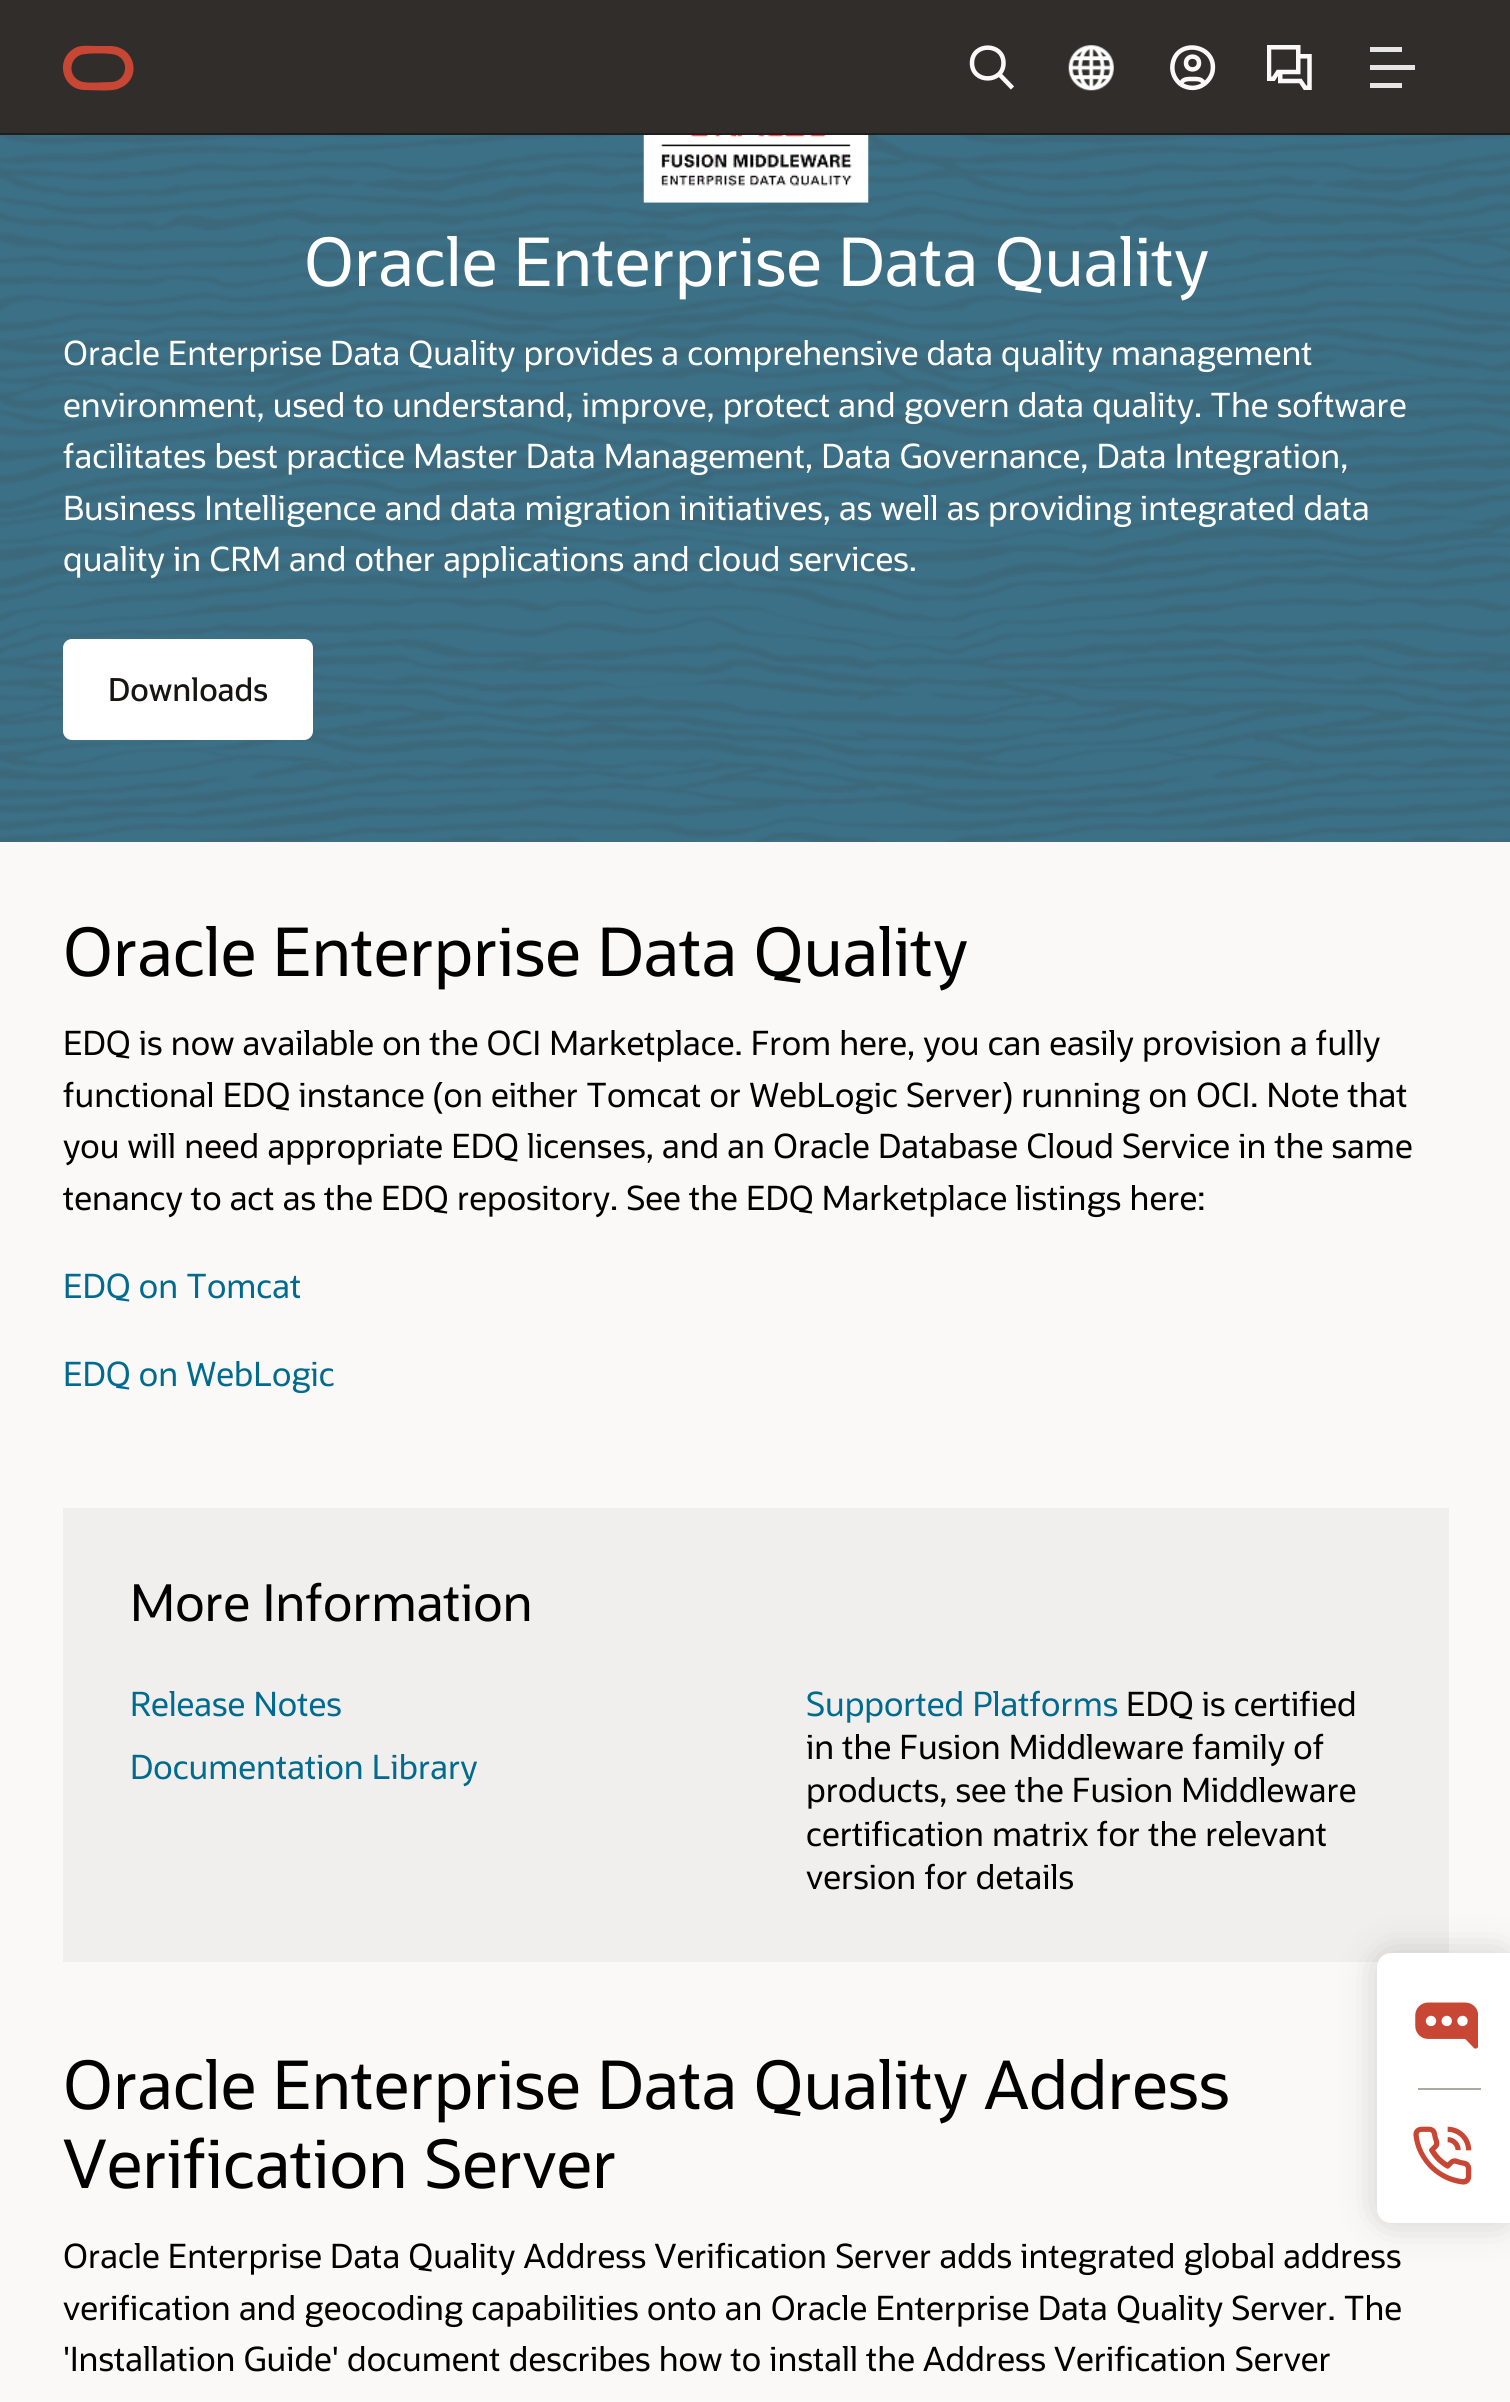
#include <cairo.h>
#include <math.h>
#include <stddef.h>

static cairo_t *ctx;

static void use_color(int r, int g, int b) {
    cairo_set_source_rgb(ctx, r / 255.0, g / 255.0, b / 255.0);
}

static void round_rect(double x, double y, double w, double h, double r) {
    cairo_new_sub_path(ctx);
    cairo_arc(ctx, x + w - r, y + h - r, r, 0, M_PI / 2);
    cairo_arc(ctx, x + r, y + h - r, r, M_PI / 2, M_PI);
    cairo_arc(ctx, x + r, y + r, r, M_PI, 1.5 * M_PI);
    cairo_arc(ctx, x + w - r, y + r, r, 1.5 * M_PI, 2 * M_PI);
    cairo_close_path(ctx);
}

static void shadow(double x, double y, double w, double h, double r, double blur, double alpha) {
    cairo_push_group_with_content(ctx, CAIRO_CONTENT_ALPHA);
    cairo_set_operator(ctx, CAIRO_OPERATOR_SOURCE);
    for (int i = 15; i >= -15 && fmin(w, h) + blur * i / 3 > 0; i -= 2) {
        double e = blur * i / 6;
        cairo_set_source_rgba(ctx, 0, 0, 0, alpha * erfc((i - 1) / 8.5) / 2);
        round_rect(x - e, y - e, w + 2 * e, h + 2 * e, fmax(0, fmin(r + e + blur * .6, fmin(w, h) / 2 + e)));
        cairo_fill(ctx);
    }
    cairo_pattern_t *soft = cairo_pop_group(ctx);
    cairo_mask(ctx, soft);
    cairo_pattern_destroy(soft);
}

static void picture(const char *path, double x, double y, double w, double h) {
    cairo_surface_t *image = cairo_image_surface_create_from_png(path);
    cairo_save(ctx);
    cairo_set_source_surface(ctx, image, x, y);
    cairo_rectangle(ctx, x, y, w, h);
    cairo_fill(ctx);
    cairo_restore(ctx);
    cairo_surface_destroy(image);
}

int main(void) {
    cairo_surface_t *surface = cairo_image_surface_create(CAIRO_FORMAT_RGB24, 1510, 2402);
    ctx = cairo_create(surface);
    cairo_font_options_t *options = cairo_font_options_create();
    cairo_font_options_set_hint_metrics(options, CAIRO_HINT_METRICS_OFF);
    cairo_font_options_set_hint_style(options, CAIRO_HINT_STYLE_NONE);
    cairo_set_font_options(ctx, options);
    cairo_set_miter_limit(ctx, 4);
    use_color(251, 249, 248);
    cairo_paint(ctx);
    use_color(49, 45, 42);
    cairo_rectangle(ctx, 0, 0, 1510, 133);
    cairo_fill(ctx);
    use_color(199, 70, 52);
    cairo_new_path(ctx);
    cairo_move_to(ctx, 85, 90);
    cairo_curve_to(ctx, 61, 90, 54, 57, 77, 47);
    cairo_curve_to(ctx, 83, 45, 91, 46, 98, 46);
    cairo_line_to(ctx, 111, 46);
    cairo_curve_to(ctx, 136, 47, 142, 79, 120, 88);
    cairo_curve_to(ctx, 113, 92, 94, 90, 85, 90);
    cairo_move_to(ctx, 111, 82);
    cairo_curve_to(ctx, 126, 82, 131, 61, 116, 55);
    cairo_curve_to(ctx, 111, 53, 92, 53, 86, 54);
    cairo_curve_to(ctx, 70, 54, 66, 75, 80, 81);
    cairo_curve_to(ctx, 86, 84, 104, 82, 111, 82);
    cairo_fill(ctx);
    cairo_new_path(ctx);
    cairo_move_to(ctx, 999, 74);
    cairo_line_to(ctx, 1012.5, 88);
    cairo_move_to(ctx, 1003.5, 63);
    cairo_curve_to(ctx, 1003.5, 83.5, 972, 83.5, 972, 63);
    cairo_curve_to(ctx, 972, 42.5, 1003.5, 42.5, 1003.5, 63);
    cairo_close_path(ctx);
    use_color(251, 249, 248);
    cairo_set_line_width(ctx, 4.5);
    cairo_stroke(ctx);
    picture("img1.png", 1068, 45, 46, 46);
    cairo_new_path(ctx);
    cairo_move_to(ctx, 1204, 84.5);
    cairo_curve_to(ctx, 1203, 78.5, 1197, 79, 1192.5, 79);
    cairo_curve_to(ctx, 1188, 79, 1182, 78.5, 1181, 84.5);
    cairo_move_to(ctx, 1203.5, 84.5);
    cairo_curve_to(ctx, 1208, 81.5, 1211.5, 76.5, 1212.5, 71.5);
    cairo_curve_to(ctx, 1217.5, 44.5, 1176, 37.5, 1172.5, 65);
    cairo_curve_to(ctx, 1171.5, 72.5, 1175, 80, 1181, 84.5);
    cairo_move_to(ctx, 1203.5, 84.5);
    cairo_curve_to(ctx, 1197, 89, 1188, 89, 1181, 84.5);
    cairo_move_to(ctx, 1199, 63);
    cairo_curve_to(ctx, 1199, 71.5, 1186, 71.5, 1186, 63);
    cairo_curve_to(ctx, 1186, 54.5, 1199, 54.5, 1199, 63);
    cairo_close_path(ctx);
    cairo_stroke(ctx);
    picture("img2.png", 1267, 45, 45, 45);
    use_color(231, 229, 227);
    cairo_rectangle(ctx, 1370, 47, 32, 5);
    cairo_fill(ctx);
    cairo_rectangle(ctx, 1370, 65, 45, 5);
    cairo_fill(ctx);
    cairo_rectangle(ctx, 1370, 83, 32, 5);
    cairo_fill(ctx);
    use_color(32, 30, 28);
    cairo_rectangle(ctx, 0, 133, 1510, 2);
    cairo_fill(ctx);
    use_color(59, 112, 135);
    cairo_rectangle(ctx, 0, 135, 1510, 707);
    cairo_fill(ctx);
    picture("img3.png", 0, 135, 1510, 707);
    picture("img4.png", 643, 135, 226, 68);
    cairo_select_font_face(ctx, "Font", CAIRO_FONT_SLANT_NORMAL, CAIRO_FONT_WEIGHT_NORMAL);
    cairo_set_font_size(ctx, 66.6);
    use_color(255, 255, 255);
    cairo_move_to(ctx, 304, 286);
    cairo_show_text(ctx, "Oracle Enterprise Data Quality");
    cairo_set_font_size(ctx, 33.3);
    cairo_move_to(ctx, 63, 365);
    cairo_show_text(ctx, "Oracle Enterprise Data Quality provides a comprehensive data quality management");
    cairo_move_to(ctx, 63, 417);
    cairo_show_text(ctx, "environment, used to understand, improve, protect and govern data quality. The software");
    cairo_move_to(ctx, 63, 468);
    cairo_show_text(ctx, "facilitates best practice Master Data Management, Data Governance, Data Integration,");
    cairo_move_to(ctx, 63, 520);
    cairo_show_text(ctx, "Business Intelligence and data migration initiatives, as well as providing integrated data");
    cairo_move_to(ctx, 63, 571);
    cairo_show_text(ctx, "quality in CRM and other applications and cloud services.");
    round_rect(63, 639, 250, 101, 9);
    cairo_fill(ctx);
    cairo_select_font_face(ctx, "Font Medium", CAIRO_FONT_SLANT_NORMAL, CAIRO_FONT_WEIGHT_NORMAL);
    cairo_set_font_size(ctx, 31.5);
    use_color(22, 21, 19);
    cairo_move_to(ctx, 108, 701);
    cairo_show_text(ctx, "Downloads");
    cairo_select_font_face(ctx, "Font", CAIRO_FONT_SLANT_NORMAL, CAIRO_FONT_WEIGHT_NORMAL);
    cairo_set_font_size(ctx, 66.6);
    use_color(0, 0, 0);
    cairo_move_to(ctx, 63, 976);
    cairo_show_text(ctx, "Oracle Enterprise Data Quality");
    cairo_set_font_size(ctx, 33.3);
    cairo_move_to(ctx, 63, 1055);
    cairo_show_text(ctx, "EDQ is now available on the OCI Marketplace. From here, you can easily provision a fully");
    cairo_move_to(ctx, 63, 1107);
    cairo_show_text(ctx, "functional EDQ instance (on either Tomcat or WebLogic Server) running on OCI. Note that");
    cairo_move_to(ctx, 63, 1158);
    cairo_show_text(ctx, "you will need appropriate EDQ licenses, and an Oracle Database Cloud Service in the same");
    cairo_move_to(ctx, 63, 1210);
    cairo_show_text(ctx, "tenancy to act as the EDQ repository. See the EDQ Marketplace listings here:");
    use_color(0, 107, 143);
    cairo_move_to(ctx, 63, 1298);
    cairo_show_text(ctx, "EDQ on Tomcat");
    cairo_move_to(ctx, 63, 1386);
    cairo_show_text(ctx, "EDQ on WebLogic");
    use_color(241, 239, 237);
    cairo_rectangle(ctx, 63, 1508, 1386, 454);
    cairo_fill(ctx);
    cairo_set_font_size(ctx, 50.5);
    use_color(0, 0, 0);
    cairo_move_to(ctx, 130, 1621);
    cairo_show_text(ctx, "More Information");
    cairo_set_font_size(ctx, 33.3);
    use_color(0, 107, 143);
    cairo_move_to(ctx, 130, 1716);
    cairo_show_text(ctx, "Release Notes");
    cairo_move_to(ctx, 806, 1716);
    cairo_show_text(ctx, "Supported Platforms");
    use_color(0, 0, 0);
    cairo_move_to(ctx, 1126, 1716);
    cairo_show_text(ctx, "EDQ is certified");
    cairo_move_to(ctx, 806, 1759);
    cairo_show_text(ctx, "in the Fusion Middleware family of");
    cairo_move_to(ctx, 806, 1802);
    cairo_show_text(ctx, "products, see the Fusion Middleware");
    cairo_move_to(ctx, 806, 1846);
    cairo_show_text(ctx, "certification matrix for the relevant");
    cairo_move_to(ctx, 806, 1889);
    cairo_show_text(ctx, "version for details");
    use_color(0, 107, 143);
    cairo_move_to(ctx, 130, 1779);
    cairo_show_text(ctx, "Documentation Library");
    cairo_set_font_size(ctx, 66.6);
    use_color(0, 0, 0);
    cairo_move_to(ctx, 63, 2109);
    cairo_show_text(ctx, "Oracle Enterprise Data Quality Address");
    cairo_move_to(ctx, 63, 2188);
    cairo_show_text(ctx, "Verification Server");
    cairo_set_font_size(ctx, 33.3);
    cairo_move_to(ctx, 63, 2268);
    cairo_show_text(ctx, "Oracle Enterprise Data Quality Address Verification Server adds integrated global address");
    cairo_move_to(ctx, 63, 2320);
    cairo_show_text(ctx, "verification and geocoding capabilities onto an Oracle Enterprise Data Quality Server. The");
    cairo_move_to(ctx, 63, 2371);
    cairo_show_text(ctx, "'Installation Guide' document describes how to install the Address Verification Server");
    use_color(0, 0, 0);
    shadow(1377, 1953, 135, 270, 14, 18, 0.17);
    use_color(255, 255, 255);
    cairo_new_path(ctx);
    cairo_move_to(ctx, 1391, 1953);
    cairo_line_to(ctx, 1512, 1953);
    cairo_line_to(ctx, 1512, 2223);
    cairo_line_to(ctx, 1391, 2223);
    cairo_curve_to(ctx, 1383.5, 2223, 1377, 2216.5, 1377, 2209);
    cairo_line_to(ctx, 1377, 1967);
    cairo_curve_to(ctx, 1377, 1959.5, 1383.5, 1953, 1391, 1953);
    cairo_close_path(ctx);
    cairo_fill(ctx);
    picture("img5.png", 1415, 2002, 63, 47);
    use_color(174, 168, 162);
    cairo_rectangle(ctx, 1418, 2088, 63, 2);
    cairo_fill(ctx);
    picture("img6.png", 1413, 2126, 59, 59);
    cairo_surface_write_to_png(surface, "result.png");
    cairo_font_options_destroy(options);
    cairo_destroy(ctx);
    cairo_surface_destroy(surface);
    return 0;
}
